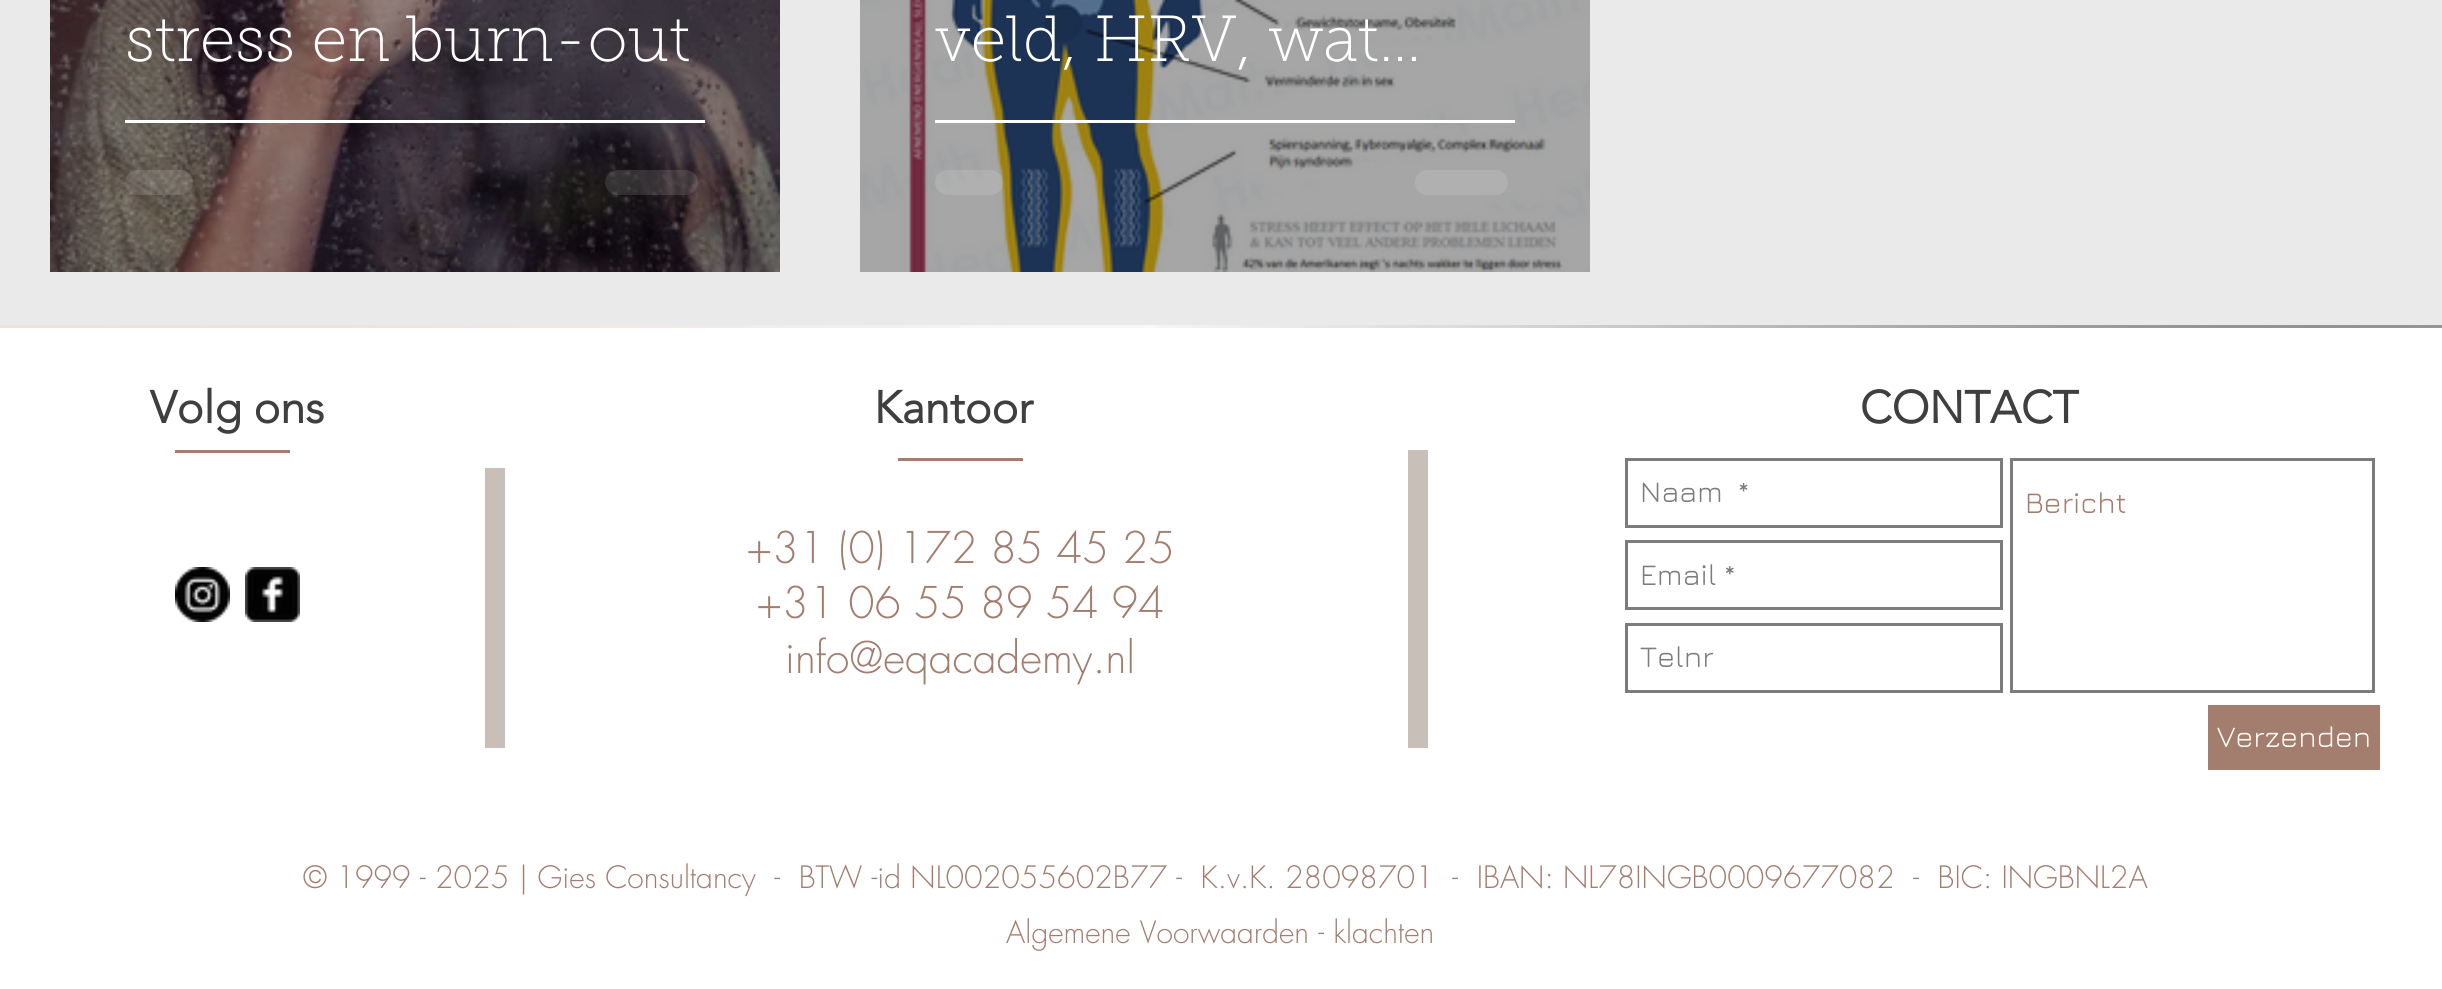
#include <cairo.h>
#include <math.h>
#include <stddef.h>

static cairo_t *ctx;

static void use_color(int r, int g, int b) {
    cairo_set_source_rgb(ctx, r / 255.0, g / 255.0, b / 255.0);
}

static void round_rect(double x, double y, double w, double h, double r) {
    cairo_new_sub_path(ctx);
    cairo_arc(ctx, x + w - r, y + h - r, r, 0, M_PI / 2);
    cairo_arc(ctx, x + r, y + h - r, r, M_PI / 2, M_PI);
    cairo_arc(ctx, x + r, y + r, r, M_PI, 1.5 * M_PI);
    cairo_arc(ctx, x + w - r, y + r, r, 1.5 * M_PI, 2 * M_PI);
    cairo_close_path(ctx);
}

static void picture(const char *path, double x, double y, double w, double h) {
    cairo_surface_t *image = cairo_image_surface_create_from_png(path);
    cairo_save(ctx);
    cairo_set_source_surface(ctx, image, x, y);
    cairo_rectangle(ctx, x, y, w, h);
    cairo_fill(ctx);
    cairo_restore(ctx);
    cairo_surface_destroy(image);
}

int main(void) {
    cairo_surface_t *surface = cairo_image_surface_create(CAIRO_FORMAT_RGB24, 2442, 989);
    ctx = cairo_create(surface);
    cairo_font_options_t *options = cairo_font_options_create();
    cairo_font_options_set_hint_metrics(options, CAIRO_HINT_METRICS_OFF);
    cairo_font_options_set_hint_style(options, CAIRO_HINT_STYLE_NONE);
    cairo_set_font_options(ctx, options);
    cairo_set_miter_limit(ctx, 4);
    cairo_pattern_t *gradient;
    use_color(255, 255, 255);
    cairo_paint(ctx);
    use_color(234, 234, 234);
    cairo_rectangle(ctx, 0, 0, 2442, 325);
    cairo_fill(ctx);
    picture("img1.png", 50, 0, 730, 272);
    cairo_select_font_face(ctx, "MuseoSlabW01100 Thin", CAIRO_FONT_SLANT_NORMAL, CAIRO_FONT_WEIGHT_NORMAL);
    cairo_set_font_size(ctx, 65);
    use_color(255, 255, 255);
    cairo_move_to(ctx, 125, 61);
    cairo_show_text(ctx, "stress en burn-out");
    cairo_rectangle(ctx, 125, 120, 580, 3);
    cairo_fill(ctx);
    cairo_set_source_rgba(ctx, 1, 1, 1, 0.12);
    round_rect(125, 170, 68, 25, 12.5);
    cairo_fill(ctx);
    round_rect(605, 170, 93, 25, 12.5);
    cairo_fill(ctx);
    picture("img2.png", 860, 0, 730, 272);
    use_color(255, 255, 255);
    cairo_move_to(ctx, 935, 61);
    cairo_show_text(ctx, "veld, HRV, wat…");
    cairo_rectangle(ctx, 935, 120, 580, 3);
    cairo_fill(ctx);
    cairo_set_source_rgba(ctx, 1, 1, 1, 0.12);
    round_rect(935, 170, 68, 25, 12.5);
    cairo_fill(ctx);
    use_color(176, 176, 176);
    round_rect(1415, 170, 93, 25, 12.5);
    cairo_fill(ctx);
    gradient = cairo_pattern_create_radial(2295, -1583, 0, 2295, -1583, 2987);
    cairo_pattern_add_color_stop_rgba(gradient, 0, 0.588, 0.525, 0.416, 1);
    cairo_pattern_add_color_stop_rgba(gradient, 0.7, 1, 1, 1, 1);
    cairo_set_source(ctx, gradient);
    cairo_pattern_destroy(gradient);
    cairo_rectangle(ctx, 1530, 325, 912, 3);
    cairo_fill(ctx);
    gradient = cairo_pattern_create_radial(206, -1485, 0, 206, -1485, 2884);
    cairo_pattern_add_color_stop_rgba(gradient, 0, 0.678, 0.463, 0.259, 0.77);
    cairo_pattern_add_color_stop_rgba(gradient, 0.7, 0.678, 0.463, 0.259, 0);
    cairo_set_source(ctx, gradient);
    cairo_pattern_destroy(gradient);
    cairo_rectangle(ctx, 0, 325, 961, 3);
    cairo_fill(ctx);
    gradient = cairo_pattern_create_radial(159, 69, 0, 159, 69, 2976);
    cairo_pattern_add_color_stop_rgba(gradient, 0, 0.639, 0.49, 0.431, 0.17);
    cairo_pattern_add_color_stop_rgba(gradient, 0.5, 0.639, 0.49, 0.431, 0);
    cairo_set_source(ctx, gradient);
    cairo_pattern_destroy(gradient);
    cairo_rectangle(ctx, 0, 325, 1433, 3);
    cairo_fill(ctx);
    gradient = cairo_pattern_create_radial(2312, 103, 0, 2312, 103, 3014);
    cairo_pattern_add_color_stop_rgba(gradient, 0, 0.486, 0.486, 0.486, 1);
    cairo_pattern_add_color_stop_rgba(gradient, 0.4, 0.486, 0.486, 0.486, 0);
    cairo_set_source(ctx, gradient);
    cairo_pattern_destroy(gradient);
    cairo_rectangle(ctx, 1155, 325, 1287, 3);
    cairo_fill(ctx);
    cairo_select_font_face(ctx, "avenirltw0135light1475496", CAIRO_FONT_SLANT_NORMAL, CAIRO_FONT_WEIGHT_BOLD);
    cairo_set_font_size(ctx, 45);
    use_color(63, 63, 63);
    cairo_move_to(ctx, 150, 423);
    cairo_show_text(ctx, "Volg ons");
    cairo_move_to(ctx, 874, 423);
    cairo_show_text(ctx, "Kantoor");
    cairo_move_to(ctx, 1860, 423);
    cairo_show_text(ctx, "CONTACT");
    use_color(163, 125, 110);
    cairo_rectangle(ctx, 175, 450, 115, 3);
    cairo_fill(ctx);
    cairo_rectangle(ctx, 898, 458, 125, 3);
    cairo_fill(ctx);
    use_color(199, 191, 184);
    cairo_rectangle(ctx, 1408, 450, 20, 298);
    cairo_fill(ctx);
    picture("img3.png", 175, 567, 55, 55);
    picture("img4.png", 245, 567, 55, 55);
    cairo_rectangle(ctx, 485, 468, 20, 280);
    cairo_fill(ctx);
    cairo_select_font_face(ctx, "futura Light", CAIRO_FONT_SLANT_NORMAL, CAIRO_FONT_WEIGHT_NORMAL);
    cairo_set_font_size(ctx, 42.5);
    use_color(163, 125, 110);
    cairo_move_to(ctx, 746, 563);
    cairo_show_text(ctx, "+31 (0) 172 85 45 25");
    cairo_move_to(ctx, 756, 618);
    cairo_show_text(ctx, "+31 06 55 89 54 94");
    cairo_move_to(ctx, 785, 673);
    cairo_show_text(ctx, "info@eqacademy.nl");
    cairo_rectangle(ctx, 1626.5, 459.5, 375, 67);
    use_color(124, 124, 124);
    cairo_set_line_width(ctx, 3);
    cairo_stroke(ctx);
    cairo_select_font_face(ctx, "Jura", CAIRO_FONT_SLANT_NORMAL, CAIRO_FONT_WEIGHT_NORMAL);
    cairo_set_font_size(ctx, 30);
    cairo_move_to(ctx, 1640, 502);
    cairo_show_text(ctx, "Naam  *");
    cairo_rectangle(ctx, 2011.5, 459.5, 362, 232);
    cairo_stroke(ctx);
    use_color(163, 125, 110);
    cairo_move_to(ctx, 2025, 513);
    cairo_show_text(ctx, "Bericht");
    cairo_rectangle(ctx, 1626.5, 541.5, 375, 67);
    use_color(124, 124, 124);
    cairo_stroke(ctx);
    cairo_move_to(ctx, 1640, 585);
    cairo_show_text(ctx, "Email *");
    cairo_rectangle(ctx, 1626.5, 624.5, 375, 67);
    cairo_stroke(ctx);
    cairo_move_to(ctx, 1640, 667);
    cairo_show_text(ctx, "Telnr");
    use_color(163, 125, 110);
    cairo_rectangle(ctx, 2208, 705, 172, 65);
    cairo_fill(ctx);
    use_color(255, 253, 245);
    cairo_move_to(ctx, 2217, 747);
    cairo_show_text(ctx, "Verzenden");
    cairo_select_font_face(ctx, "futura Light", CAIRO_FONT_SLANT_NORMAL, CAIRO_FONT_WEIGHT_NORMAL);
    use_color(163, 125, 110);
    cairo_move_to(ctx, 303, 888);
    cairo_show_text(ctx, "© 1999 - 2025 | Gies Consultancy  -  BTW -id NL002055602B77 -  K.v.K. 28098701  -  IBAN: NL78INGB0009677082  -  BIC: INGBNL2A");
    cairo_move_to(ctx, 1006, 943);
    cairo_show_text(ctx, "Algemene Voorwaarden - klachten");
    cairo_surface_write_to_png(surface, "result.png");
    cairo_font_options_destroy(options);
    cairo_destroy(ctx);
    cairo_surface_destroy(surface);
    return 0;
}
